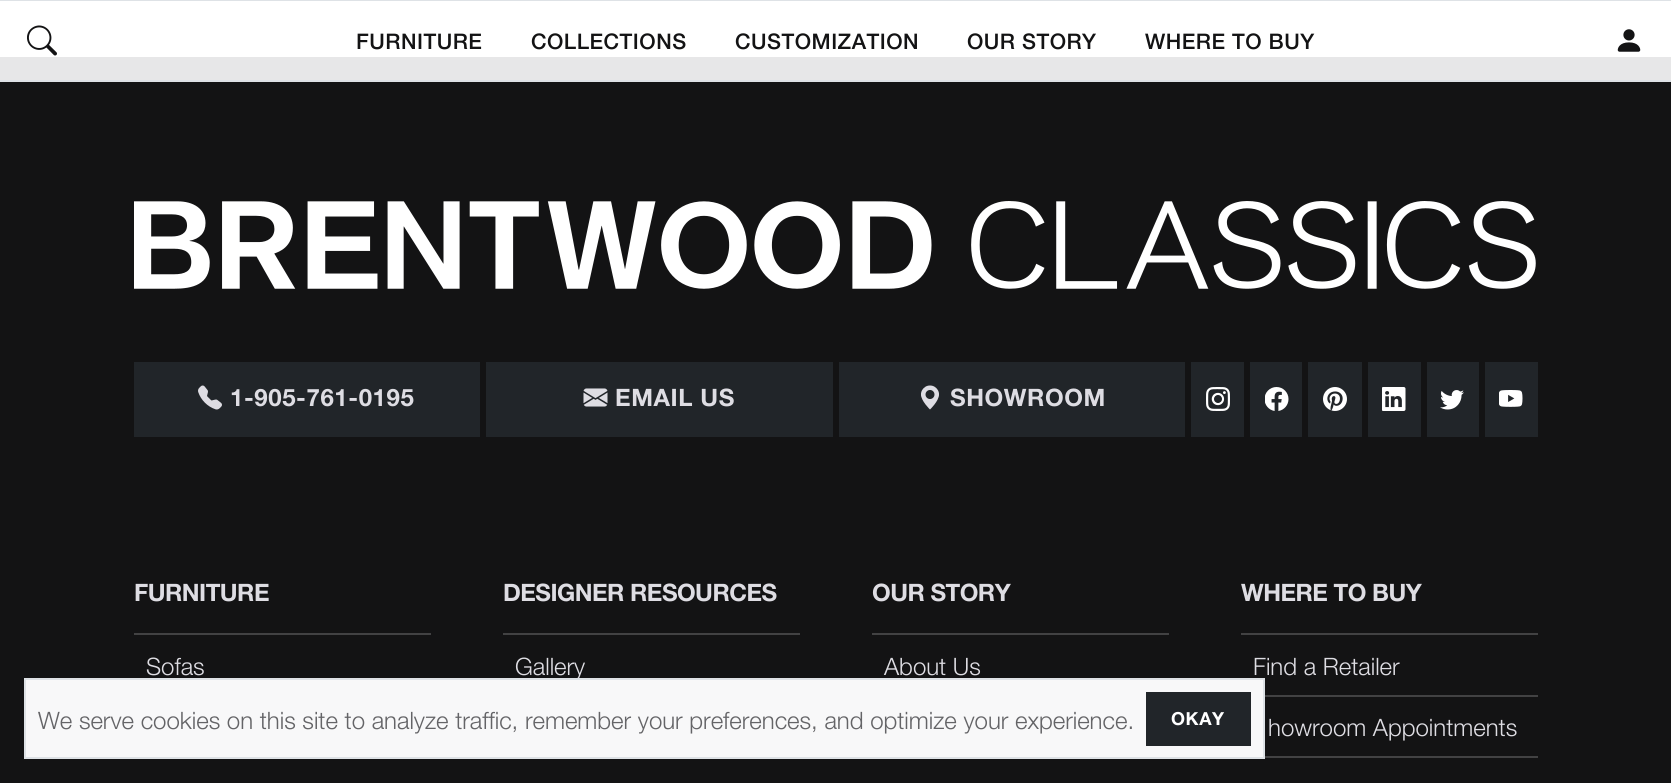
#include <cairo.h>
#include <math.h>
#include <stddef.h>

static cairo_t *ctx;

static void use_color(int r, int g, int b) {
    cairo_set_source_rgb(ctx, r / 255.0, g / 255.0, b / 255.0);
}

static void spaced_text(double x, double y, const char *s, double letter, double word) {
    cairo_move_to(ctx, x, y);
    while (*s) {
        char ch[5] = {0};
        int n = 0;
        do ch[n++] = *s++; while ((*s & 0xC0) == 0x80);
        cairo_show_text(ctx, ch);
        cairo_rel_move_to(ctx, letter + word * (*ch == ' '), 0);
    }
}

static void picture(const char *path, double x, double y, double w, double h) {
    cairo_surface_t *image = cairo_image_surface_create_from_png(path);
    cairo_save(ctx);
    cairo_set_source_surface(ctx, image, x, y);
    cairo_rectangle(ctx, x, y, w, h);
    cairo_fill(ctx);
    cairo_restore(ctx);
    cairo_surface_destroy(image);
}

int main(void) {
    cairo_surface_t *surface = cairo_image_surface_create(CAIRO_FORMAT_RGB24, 1671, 783);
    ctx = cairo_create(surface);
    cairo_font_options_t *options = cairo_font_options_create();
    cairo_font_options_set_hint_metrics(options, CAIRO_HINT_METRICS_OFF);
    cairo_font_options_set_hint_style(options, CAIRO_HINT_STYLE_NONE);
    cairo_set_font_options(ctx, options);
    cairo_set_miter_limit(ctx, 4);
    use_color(255, 255, 255);
    cairo_paint(ctx);
    use_color(222, 226, 230);
    cairo_rectangle(ctx, 0, 0, 1671, 1);
    cairo_fill(ctx);
    cairo_rectangle(ctx, 0, 80, 1671, 2);
    cairo_fill(ctx);
    picture("img1.png", 27, 25, 30, 31);
    cairo_select_font_face(ctx, "Helvetica Neue Medium", CAIRO_FONT_SLANT_NORMAL, CAIRO_FONT_WEIGHT_NORMAL);
    cairo_set_font_size(ctx, 21.5);
    use_color(19, 19, 20);
    spaced_text(356, 49, "FURNITURE", 0.5, 0);
    spaced_text(531, 49, "COLLECTIONS", 0.5, 0);
    spaced_text(735, 49, "CUSTOMIZATION", 0.5, 0);
    spaced_text(967, 49, "OUR STORY", 0.5, 0);
    spaced_text(1145, 49, "WHERE TO BUY", 0.5, 0);
    picture("img2.png", 1617, 29, 24, 23);
    cairo_rectangle(ctx, 0, 82, 1671, 701);
    cairo_fill(ctx);
    use_color(231, 231, 232);
    cairo_rectangle(ctx, 0, 57, 1671, 23);
    cairo_fill(ctx);
    picture("img3.png", 134, 201, 1402, 88);
    use_color(33, 37, 41);
    cairo_rectangle(ctx, 134, 362, 346, 75);
    cairo_fill(ctx);
    picture("img4.png", 198, 385, 24, 25);
    cairo_select_font_face(ctx, "Helvetica Neue", CAIRO_FONT_SLANT_NORMAL, CAIRO_FONT_WEIGHT_BOLD);
    cairo_set_font_size(ctx, 24);
    use_color(222, 221, 227);
    spaced_text(230, 406, "1-905-761-0195", 0.6, 0);
    use_color(33, 37, 41);
    cairo_rectangle(ctx, 486, 362, 347, 75);
    cairo_fill(ctx);
    picture("img5.png", 583, 388, 25, 19);
    use_color(222, 221, 227);
    spaced_text(615, 406, "EMAIL US", 0.6, 0);
    use_color(33, 37, 41);
    cairo_rectangle(ctx, 839, 362, 346, 75);
    cairo_fill(ctx);
    picture("img6.png", 921, 385, 18, 25);
    use_color(222, 221, 227);
    spaced_text(950, 406, "SHOWROOM", 0.6, 0);
    use_color(33, 37, 41);
    cairo_rectangle(ctx, 1191, 362, 53, 75);
    cairo_fill(ctx);
    picture("img7.png", 1206, 387, 24, 24);
    cairo_rectangle(ctx, 1250, 362, 52, 75);
    cairo_fill(ctx);
    picture("img8.png", 1265, 387, 24, 24);
    cairo_rectangle(ctx, 1308, 362, 54, 75);
    cairo_fill(ctx);
    picture("img9.png", 1323, 387, 24, 24);
    cairo_rectangle(ctx, 1368, 362, 53, 75);
    cairo_fill(ctx);
    picture("img10.png", 1382, 387, 24, 24);
    cairo_rectangle(ctx, 1427, 362, 52, 75);
    cairo_fill(ctx);
    picture("img11.png", 1440, 390, 24, 20);
    cairo_rectangle(ctx, 1485, 362, 53, 75);
    cairo_fill(ctx);
    picture("img12.png", 1499, 390, 24, 17);
    use_color(222, 221, 227);
    spaced_text(134, 601, "FURNITURE", -0.5, 0);
    use_color(66, 66, 67);
    cairo_rectangle(ctx, 134, 633, 297, 2);
    cairo_fill(ctx);
    cairo_select_font_face(ctx, "Helvetica Neue Light", CAIRO_FONT_SLANT_NORMAL, CAIRO_FONT_WEIGHT_NORMAL);
    use_color(222, 221, 227);
    cairo_move_to(ctx, 146, 675);
    cairo_show_text(ctx, "Sofas");
    cairo_select_font_face(ctx, "Helvetica Neue", CAIRO_FONT_SLANT_NORMAL, CAIRO_FONT_WEIGHT_BOLD);
    spaced_text(503, 601, "DESIGNER RESOURCES", -0.5, 0);
    use_color(66, 66, 67);
    cairo_rectangle(ctx, 503, 633, 297, 2);
    cairo_fill(ctx);
    cairo_select_font_face(ctx, "Helvetica Neue Light", CAIRO_FONT_SLANT_NORMAL, CAIRO_FONT_WEIGHT_NORMAL);
    use_color(222, 221, 227);
    cairo_move_to(ctx, 515, 675);
    cairo_show_text(ctx, "Gallery");
    cairo_select_font_face(ctx, "Helvetica Neue", CAIRO_FONT_SLANT_NORMAL, CAIRO_FONT_WEIGHT_BOLD);
    spaced_text(872, 601, "OUR STORY", -0.5, 0);
    use_color(66, 66, 67);
    cairo_rectangle(ctx, 872, 633, 297, 2);
    cairo_fill(ctx);
    cairo_select_font_face(ctx, "Helvetica Neue Light", CAIRO_FONT_SLANT_NORMAL, CAIRO_FONT_WEIGHT_NORMAL);
    use_color(222, 221, 227);
    cairo_move_to(ctx, 884, 675);
    cairo_show_text(ctx, "About Us");
    cairo_select_font_face(ctx, "Helvetica Neue", CAIRO_FONT_SLANT_NORMAL, CAIRO_FONT_WEIGHT_BOLD);
    spaced_text(1241, 601, "WHERE TO BUY", -0.5, 0);
    use_color(66, 66, 67);
    cairo_rectangle(ctx, 1241, 633, 297, 2);
    cairo_fill(ctx);
    cairo_select_font_face(ctx, "Helvetica Neue Light", CAIRO_FONT_SLANT_NORMAL, CAIRO_FONT_WEIGHT_NORMAL);
    use_color(222, 221, 227);
    cairo_move_to(ctx, 1253, 675);
    cairo_show_text(ctx, "Find a Retailer");
    use_color(66, 66, 67);
    cairo_rectangle(ctx, 1265, 695, 273, 2);
    cairo_fill(ctx);
    use_color(222, 221, 227);
    cairo_move_to(ctx, 1268, 736);
    cairo_show_text(ctx, "howroom Appointments");
    use_color(66, 66, 67);
    cairo_rectangle(ctx, 1265, 756, 273, 2);
    cairo_fill(ctx);
    use_color(248, 248, 249);
    cairo_rectangle(ctx, 25, 679, 1239, 79);
    cairo_fill_preserve(ctx);
    use_color(222, 226, 230);
    cairo_stroke(ctx);
    use_color(100, 100, 103);
    cairo_move_to(ctx, 38, 729);
    cairo_show_text(ctx, "We serve cookies on this site to analyze traffic, remember your preferences, and optimize your experience.");
    use_color(33, 37, 41);
    cairo_rectangle(ctx, 1146, 692, 105, 54);
    cairo_fill(ctx);
    cairo_select_font_face(ctx, "Helvetica Neue", CAIRO_FONT_SLANT_NORMAL, CAIRO_FONT_WEIGHT_BOLD);
    cairo_set_font_size(ctx, 18);
    use_color(255, 255, 255);
    spaced_text(1171, 725, "OKAY", 0.6, 0);
    cairo_surface_write_to_png(surface, "result.png");
    cairo_font_options_destroy(options);
    cairo_destroy(ctx);
    cairo_surface_destroy(surface);
    return 0;
}
